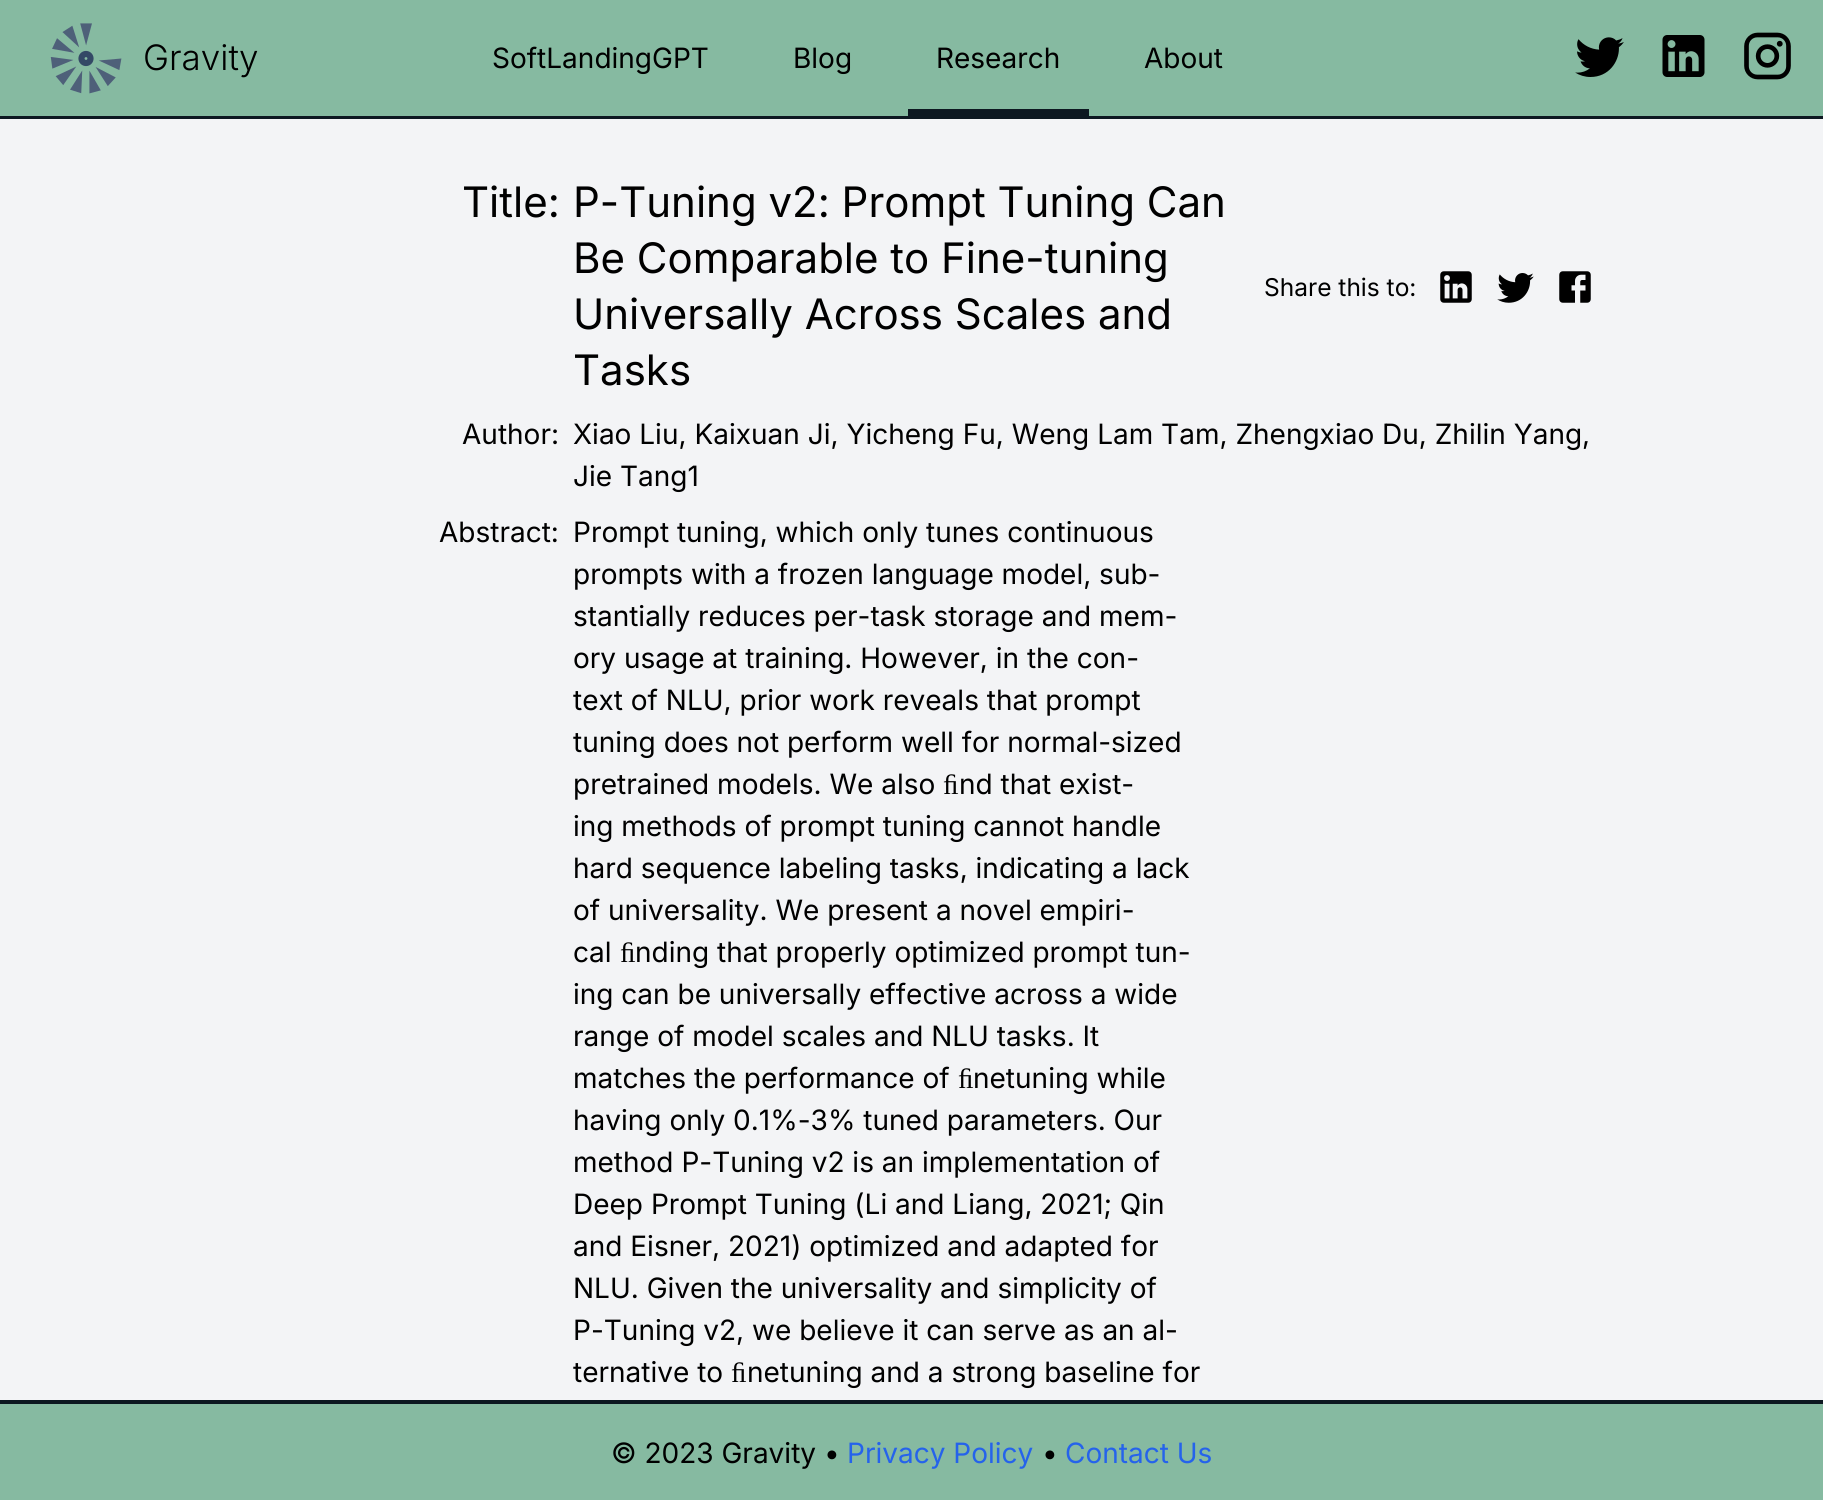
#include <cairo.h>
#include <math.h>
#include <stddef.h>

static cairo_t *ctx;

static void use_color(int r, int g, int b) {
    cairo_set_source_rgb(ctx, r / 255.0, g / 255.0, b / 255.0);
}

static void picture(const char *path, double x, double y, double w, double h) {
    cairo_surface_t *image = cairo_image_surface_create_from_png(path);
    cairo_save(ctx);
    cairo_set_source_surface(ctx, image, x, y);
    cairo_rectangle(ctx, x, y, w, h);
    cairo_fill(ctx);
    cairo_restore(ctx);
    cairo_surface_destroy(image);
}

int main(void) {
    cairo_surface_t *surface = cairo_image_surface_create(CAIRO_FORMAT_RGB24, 1823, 1500);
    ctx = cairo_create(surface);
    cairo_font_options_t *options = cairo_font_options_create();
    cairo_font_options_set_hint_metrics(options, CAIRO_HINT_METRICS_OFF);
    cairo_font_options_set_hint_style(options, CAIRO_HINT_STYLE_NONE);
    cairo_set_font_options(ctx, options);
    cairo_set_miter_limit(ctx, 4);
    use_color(134, 186, 161);
    cairo_paint(ctx);
    use_color(13, 24, 33);
    cairo_rectangle(ctx, 0, 116, 1823, 3);
    cairo_fill(ctx);
    picture("img1.png", 50, 23, 72, 71);
    cairo_select_font_face(ctx, "Inter Light", CAIRO_FONT_SLANT_NORMAL, CAIRO_FONT_WEIGHT_NORMAL);
    cairo_set_font_size(ctx, 35);
    use_color(0, 0, 0);
    cairo_move_to(ctx, 143, 70);
    cairo_show_text(ctx, "Gravity");
    cairo_select_font_face(ctx, "Inter", CAIRO_FONT_SLANT_NORMAL, CAIRO_FONT_WEIGHT_NORMAL);
    cairo_set_font_size(ctx, 28);
    cairo_move_to(ctx, 492, 68);
    cairo_show_text(ctx, "SoftLandingGPT");
    cairo_move_to(ctx, 793, 68);
    cairo_show_text(ctx, "Blog");
    use_color(13, 24, 33);
    cairo_rectangle(ctx, 908, 109, 181, 7);
    cairo_fill(ctx);
    use_color(0, 0, 0);
    cairo_move_to(ctx, 936, 68);
    cairo_show_text(ctx, "Research");
    cairo_move_to(ctx, 1144, 68);
    cairo_show_text(ctx, "About");
    picture("img2.png", 1575, 37, 49, 40);
    picture("img3.png", 1662, 35, 43, 42);
    picture("img4.png", 1744, 32, 47, 48);
    use_color(243, 244, 246);
    cairo_rectangle(ctx, 0, 119, 1823, 1281);
    cairo_fill(ctx);
    cairo_set_font_size(ctx, 42);
    use_color(0, 0, 0);
    cairo_move_to(ctx, 462, 217);
    cairo_show_text(ctx, "Title:");
    cairo_move_to(ctx, 573, 217);
    cairo_show_text(ctx, "P-Tuning v2: Prompt Tuning Can");
    cairo_move_to(ctx, 573, 273);
    cairo_show_text(ctx, "Be Comparable to Fine-tuning");
    cairo_move_to(ctx, 573, 329);
    cairo_show_text(ctx, "Universally Across Scales and");
    cairo_move_to(ctx, 573, 385);
    cairo_show_text(ctx, "Tasks");
    cairo_set_font_size(ctx, 24.5);
    cairo_move_to(ctx, 1264, 296);
    cairo_show_text(ctx, "Share this to:");
    picture("img5.png", 1440, 271, 32, 32);
    picture("img6.png", 1497, 273, 37, 30);
    picture("img7.png", 1559, 271, 32, 32);
    cairo_set_font_size(ctx, 28);
    cairo_move_to(ctx, 462, 444);
    cairo_show_text(ctx, "Author:");
    cairo_move_to(ctx, 573, 444);
    cairo_show_text(ctx, "Xiao Liu, Kaixuan Ji, Yicheng Fu, Weng Lam Tam, Zhengxiao Du, Zhilin Yang,");
    cairo_move_to(ctx, 573, 486);
    cairo_show_text(ctx, "Jie Tang1");
    cairo_move_to(ctx, 439, 542);
    cairo_show_text(ctx, "Abstract:");
    cairo_move_to(ctx, 573, 542);
    cairo_show_text(ctx, "Prompt tuning, which only tunes continuous");
    cairo_move_to(ctx, 573, 584);
    cairo_show_text(ctx, "prompts with a frozen language model, sub-");
    cairo_move_to(ctx, 573, 626);
    cairo_show_text(ctx, "stantially reduces per-task storage and mem-");
    cairo_move_to(ctx, 573, 668);
    cairo_show_text(ctx, "ory usage at training. However, in the con-");
    cairo_move_to(ctx, 573, 710);
    cairo_show_text(ctx, "text of NLU, prior work reveals that prompt");
    cairo_move_to(ctx, 573, 752);
    cairo_show_text(ctx, "tuning does not perform well for normal-sized");
    cairo_move_to(ctx, 573, 794);
    cairo_show_text(ctx, "pretrained models. We also");
    cairo_select_font_face(ctx, "Liberation Serif", CAIRO_FONT_SLANT_NORMAL, CAIRO_FONT_WEIGHT_NORMAL);
    cairo_move_to(ctx, 943, 794);
    cairo_show_text(ctx, "ﬁ");
    cairo_select_font_face(ctx, "Inter", CAIRO_FONT_SLANT_NORMAL, CAIRO_FONT_WEIGHT_NORMAL);
    cairo_move_to(ctx, 959, 794);
    cairo_show_text(ctx, "nd that exist-");
    cairo_move_to(ctx, 573, 836);
    cairo_show_text(ctx, "ing methods of prompt tuning cannot handle");
    cairo_move_to(ctx, 573, 878);
    cairo_show_text(ctx, "hard sequence labeling tasks, indicating a lack");
    cairo_move_to(ctx, 573, 920);
    cairo_show_text(ctx, "of universality. We present a novel empiri-");
    cairo_move_to(ctx, 573, 962);
    cairo_show_text(ctx, "cal");
    cairo_select_font_face(ctx, "Liberation Serif", CAIRO_FONT_SLANT_NORMAL, CAIRO_FONT_WEIGHT_NORMAL);
    cairo_move_to(ctx, 620, 962);
    cairo_show_text(ctx, "ﬁ");
    cairo_select_font_face(ctx, "Inter", CAIRO_FONT_SLANT_NORMAL, CAIRO_FONT_WEIGHT_NORMAL);
    cairo_move_to(ctx, 635, 962);
    cairo_show_text(ctx, "nding that properly optimized prompt tun-");
    cairo_move_to(ctx, 573, 1004);
    cairo_show_text(ctx, "ing can be universally effective across a wide");
    cairo_move_to(ctx, 573, 1046);
    cairo_show_text(ctx, "range of model scales and NLU tasks. It");
    cairo_move_to(ctx, 573, 1088);
    cairo_show_text(ctx, "matches the performance of");
    cairo_select_font_face(ctx, "Liberation Serif", CAIRO_FONT_SLANT_NORMAL, CAIRO_FONT_WEIGHT_NORMAL);
    cairo_move_to(ctx, 958, 1088);
    cairo_show_text(ctx, "ﬁ");
    cairo_select_font_face(ctx, "Inter", CAIRO_FONT_SLANT_NORMAL, CAIRO_FONT_WEIGHT_NORMAL);
    cairo_move_to(ctx, 973, 1088);
    cairo_show_text(ctx, "netuning while");
    cairo_move_to(ctx, 573, 1130);
    cairo_show_text(ctx, "having only 0.1%-3% tuned parameters. Our");
    cairo_move_to(ctx, 573, 1172);
    cairo_show_text(ctx, "method P-Tuning v2 is an implementation of");
    cairo_move_to(ctx, 573, 1214);
    cairo_show_text(ctx, "Deep Prompt Tuning (Li and Liang, 2021; Qin");
    cairo_move_to(ctx, 573, 1256);
    cairo_show_text(ctx, "and Eisner, 2021) optimized and adapted for");
    cairo_move_to(ctx, 573, 1298);
    cairo_show_text(ctx, "NLU. Given the universality and simplicity of");
    cairo_move_to(ctx, 573, 1340);
    cairo_show_text(ctx, "P-Tuning v2, we believe it can serve as an al-");
    cairo_move_to(ctx, 573, 1382);
    cairo_show_text(ctx, "ternative to");
    cairo_select_font_face(ctx, "Liberation Serif", CAIRO_FONT_SLANT_NORMAL, CAIRO_FONT_WEIGHT_NORMAL);
    cairo_move_to(ctx, 731, 1382);
    cairo_show_text(ctx, "ﬁ");
    cairo_select_font_face(ctx, "Inter", CAIRO_FONT_SLANT_NORMAL, CAIRO_FONT_WEIGHT_NORMAL);
    cairo_move_to(ctx, 747, 1382);
    cairo_show_text(ctx, "netuning and a strong baseline for");
    use_color(13, 24, 33);
    cairo_rectangle(ctx, 0, 1400, 1823, 4);
    cairo_fill(ctx);
    use_color(0, 0, 0);
    cairo_move_to(ctx, 611, 1463);
    cairo_show_text(ctx, "© 2023 Gravity •");
    use_color(37, 99, 235);
    cairo_move_to(ctx, 847, 1463);
    cairo_show_text(ctx, "Privacy Policy");
    use_color(0, 0, 0);
    cairo_move_to(ctx, 1042, 1463);
    cairo_show_text(ctx, "•");
    use_color(37, 99, 235);
    cairo_move_to(ctx, 1065, 1463);
    cairo_show_text(ctx, "Contact Us");
    cairo_surface_write_to_png(surface, "result.png");
    cairo_font_options_destroy(options);
    cairo_destroy(ctx);
    cairo_surface_destroy(surface);
    return 0;
}
